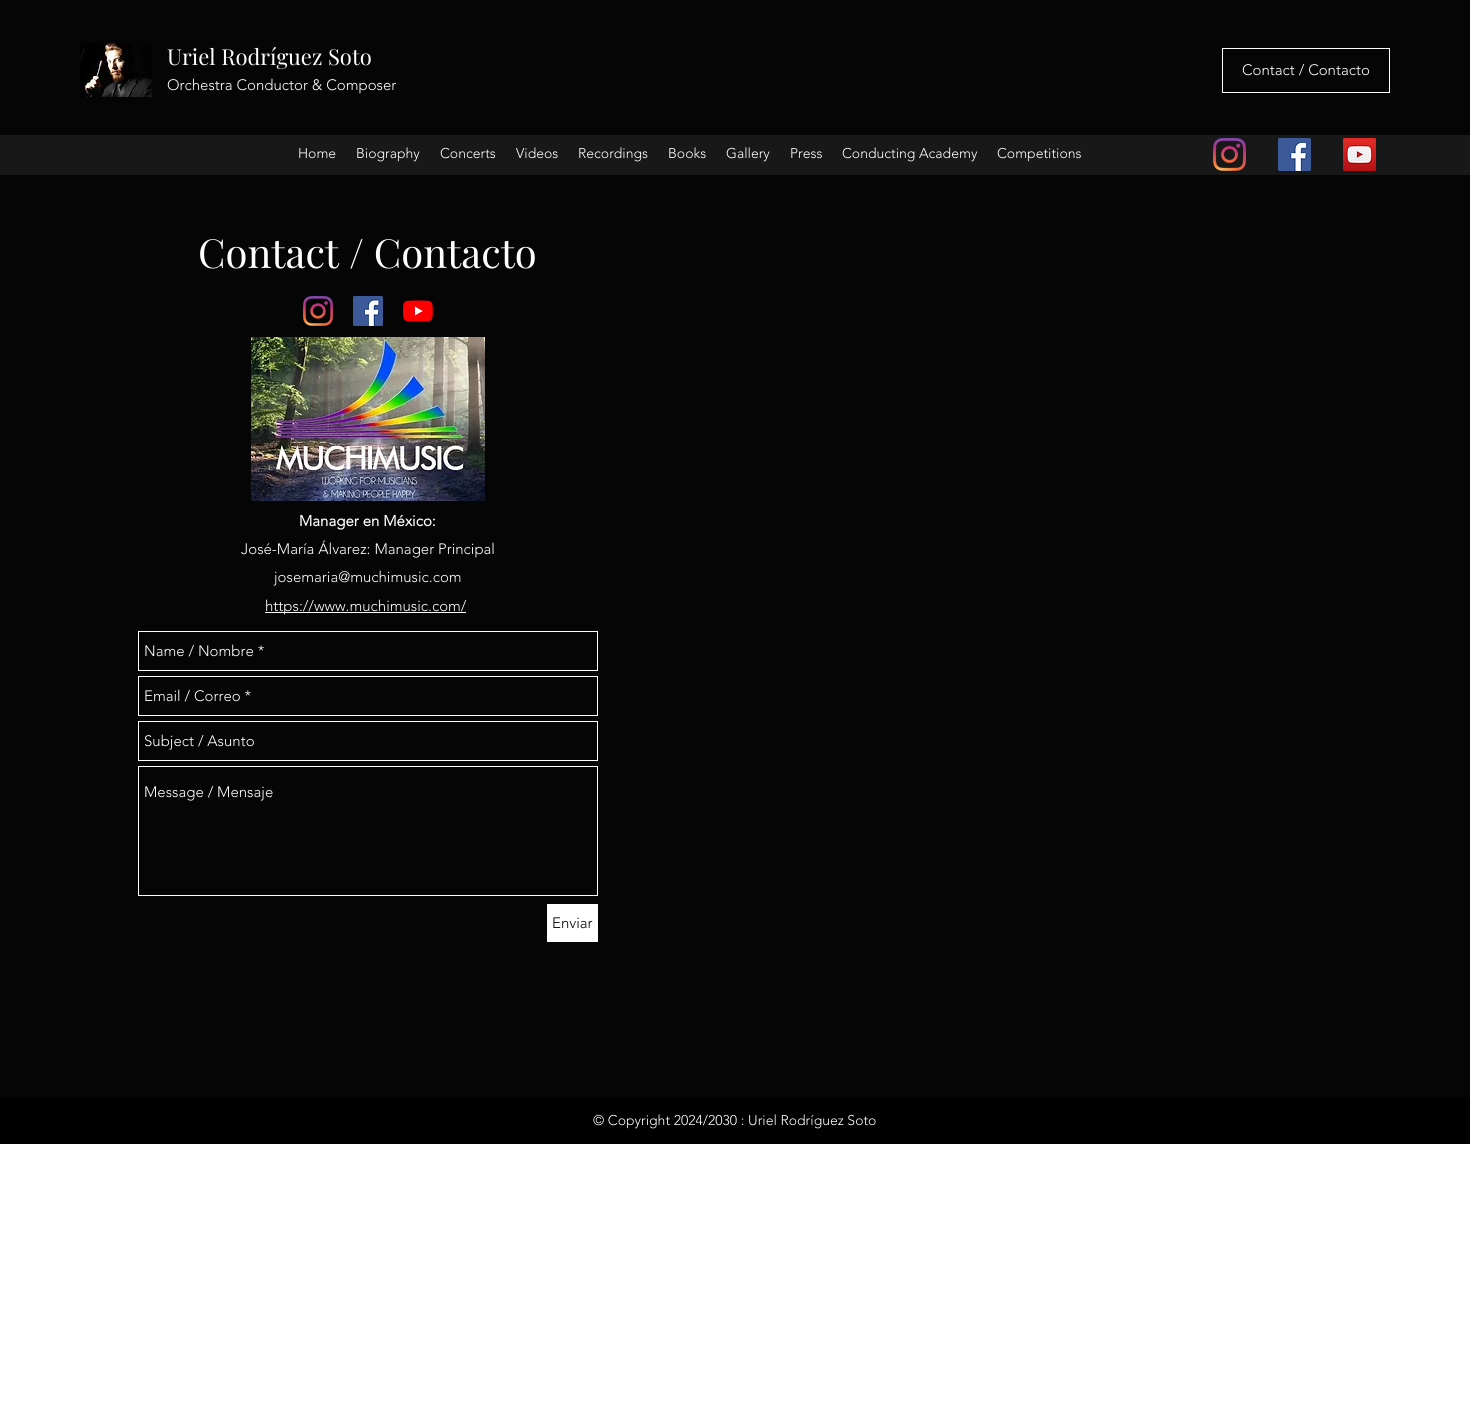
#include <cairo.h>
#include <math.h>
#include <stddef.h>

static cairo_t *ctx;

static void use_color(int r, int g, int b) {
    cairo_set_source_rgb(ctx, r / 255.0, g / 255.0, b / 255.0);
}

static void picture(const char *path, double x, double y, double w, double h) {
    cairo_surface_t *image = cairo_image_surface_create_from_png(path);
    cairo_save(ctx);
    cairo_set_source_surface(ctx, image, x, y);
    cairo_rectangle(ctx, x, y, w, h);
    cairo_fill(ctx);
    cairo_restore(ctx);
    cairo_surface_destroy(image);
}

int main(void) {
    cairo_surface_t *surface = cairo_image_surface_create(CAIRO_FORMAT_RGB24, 1470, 1402);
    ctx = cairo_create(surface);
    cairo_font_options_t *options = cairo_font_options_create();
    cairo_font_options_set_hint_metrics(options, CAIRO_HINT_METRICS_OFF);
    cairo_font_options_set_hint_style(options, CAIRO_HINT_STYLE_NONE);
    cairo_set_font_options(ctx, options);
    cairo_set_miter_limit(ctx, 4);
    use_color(255, 255, 255);
    cairo_paint(ctx);
    use_color(5, 5, 5);
    cairo_rectangle(ctx, 0, 0, 1470, 135);
    cairo_fill(ctx);
    picture("img1.png", 80, 43, 72, 54);
    cairo_select_font_face(ctx, "Playfair Display", CAIRO_FONT_SLANT_NORMAL, CAIRO_FONT_WEIGHT_NORMAL);
    cairo_set_font_size(ctx, 22);
    use_color(255, 255, 255);
    cairo_move_to(ctx, 167, 65);
    cairo_show_text(ctx, "Uriel Rodríguez Soto");
    cairo_select_font_face(ctx, "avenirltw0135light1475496 Light", CAIRO_FONT_SLANT_NORMAL, CAIRO_FONT_WEIGHT_NORMAL);
    cairo_set_font_size(ctx, 15);
    cairo_move_to(ctx, 167, 90);
    cairo_show_text(ctx, "Orchestra Conductor & Composer");
    cairo_rectangle(ctx, 1222.5, 48.5, 167, 44);
    cairo_set_line_width(ctx, 1);
    cairo_stroke(ctx);
    cairo_move_to(ctx, 1242, 75);
    cairo_show_text(ctx, "Contact / Contacto");
    use_color(24, 24, 24);
    cairo_rectangle(ctx, 0, 135, 1470, 40);
    cairo_fill(ctx);
    cairo_set_font_size(ctx, 14);
    use_color(255, 255, 255);
    cairo_move_to(ctx, 298, 158);
    cairo_show_text(ctx, "Home");
    cairo_move_to(ctx, 356, 158);
    cairo_show_text(ctx, "Biography");
    cairo_move_to(ctx, 440, 158);
    cairo_show_text(ctx, "Concerts");
    cairo_move_to(ctx, 516, 158);
    cairo_show_text(ctx, "Videos");
    cairo_move_to(ctx, 578, 158);
    cairo_show_text(ctx, "Recordings");
    cairo_move_to(ctx, 668, 158);
    cairo_show_text(ctx, "Books");
    cairo_move_to(ctx, 726, 158);
    cairo_show_text(ctx, "Gallery");
    cairo_move_to(ctx, 790, 158);
    cairo_show_text(ctx, "Press");
    cairo_move_to(ctx, 842, 158);
    cairo_show_text(ctx, "Conducting Academy");
    cairo_move_to(ctx, 997, 158);
    cairo_show_text(ctx, "Competitions");
    picture("img2.png", 1213, 138, 33, 33);
    picture("img3.png", 1278, 138, 33, 33);
    picture("img4.png", 1343, 138, 33, 33);
    use_color(5, 5, 5);
    cairo_rectangle(ctx, 0, 175, 1470, 922);
    cairo_fill(ctx);
    cairo_select_font_face(ctx, "Playfair Display", CAIRO_FONT_SLANT_NORMAL, CAIRO_FONT_WEIGHT_NORMAL);
    cairo_set_font_size(ctx, 40);
    use_color(255, 255, 255);
    cairo_move_to(ctx, 198, 268);
    cairo_show_text(ctx, "Contact / Contacto");
    picture("img5.png", 303, 296, 30, 30);
    picture("img6.png", 353, 296, 30, 30);
    picture("img7.png", 403, 300, 30, 22);
    picture("img8.png", 251, 337, 234, 164);
    cairo_select_font_face(ctx, "avenirltw0135light1475496", CAIRO_FONT_SLANT_NORMAL, CAIRO_FONT_WEIGHT_BOLD);
    cairo_set_font_size(ctx, 15);
    cairo_move_to(ctx, 299, 526);
    cairo_show_text(ctx, "Manager en México:");
    cairo_select_font_face(ctx, "avenirltw0135light1475496 Light", CAIRO_FONT_SLANT_NORMAL, CAIRO_FONT_WEIGHT_NORMAL);
    cairo_move_to(ctx, 241, 554);
    cairo_show_text(ctx, "José-María Álvarez: Manager Principal");
    cairo_move_to(ctx, 274, 582);
    cairo_show_text(ctx, "josemaria@muchimusic.com");
    cairo_rectangle(ctx, 265, 612, 201, 1);
    cairo_fill(ctx);
    cairo_move_to(ctx, 265, 611);
    cairo_show_text(ctx, "https://www.muchimusic.com/");
    cairo_rectangle(ctx, 138.5, 631.5, 459, 39);
    cairo_stroke(ctx);
    cairo_move_to(ctx, 144, 656);
    cairo_show_text(ctx, "Name / Nombre *");
    cairo_rectangle(ctx, 138.5, 676.5, 459, 39);
    cairo_stroke(ctx);
    cairo_move_to(ctx, 144, 701);
    cairo_show_text(ctx, "Email / Correo *");
    cairo_rectangle(ctx, 138.5, 721.5, 459, 39);
    cairo_stroke(ctx);
    cairo_move_to(ctx, 144, 746);
    cairo_show_text(ctx, "Subject / Asunto");
    cairo_rectangle(ctx, 138.5, 766.5, 459, 129);
    cairo_stroke(ctx);
    cairo_move_to(ctx, 144, 797);
    cairo_show_text(ctx, "Message / Mensaje");
    cairo_rectangle(ctx, 547, 904, 51, 38);
    cairo_fill(ctx);
    use_color(5, 5, 5);
    cairo_move_to(ctx, 552, 928);
    cairo_show_text(ctx, "Enviar");
    use_color(0, 0, 0);
    cairo_rectangle(ctx, 0, 1097, 1470, 47);
    cairo_fill(ctx);
    cairo_set_font_size(ctx, 14);
    use_color(255, 255, 255);
    cairo_move_to(ctx, 593, 1125);
    cairo_show_text(ctx, "© Copyright 2024/2030 : Uriel Rodríguez Soto");
    cairo_surface_write_to_png(surface, "result.png");
    cairo_font_options_destroy(options);
    cairo_destroy(ctx);
    cairo_surface_destroy(surface);
    return 0;
}
